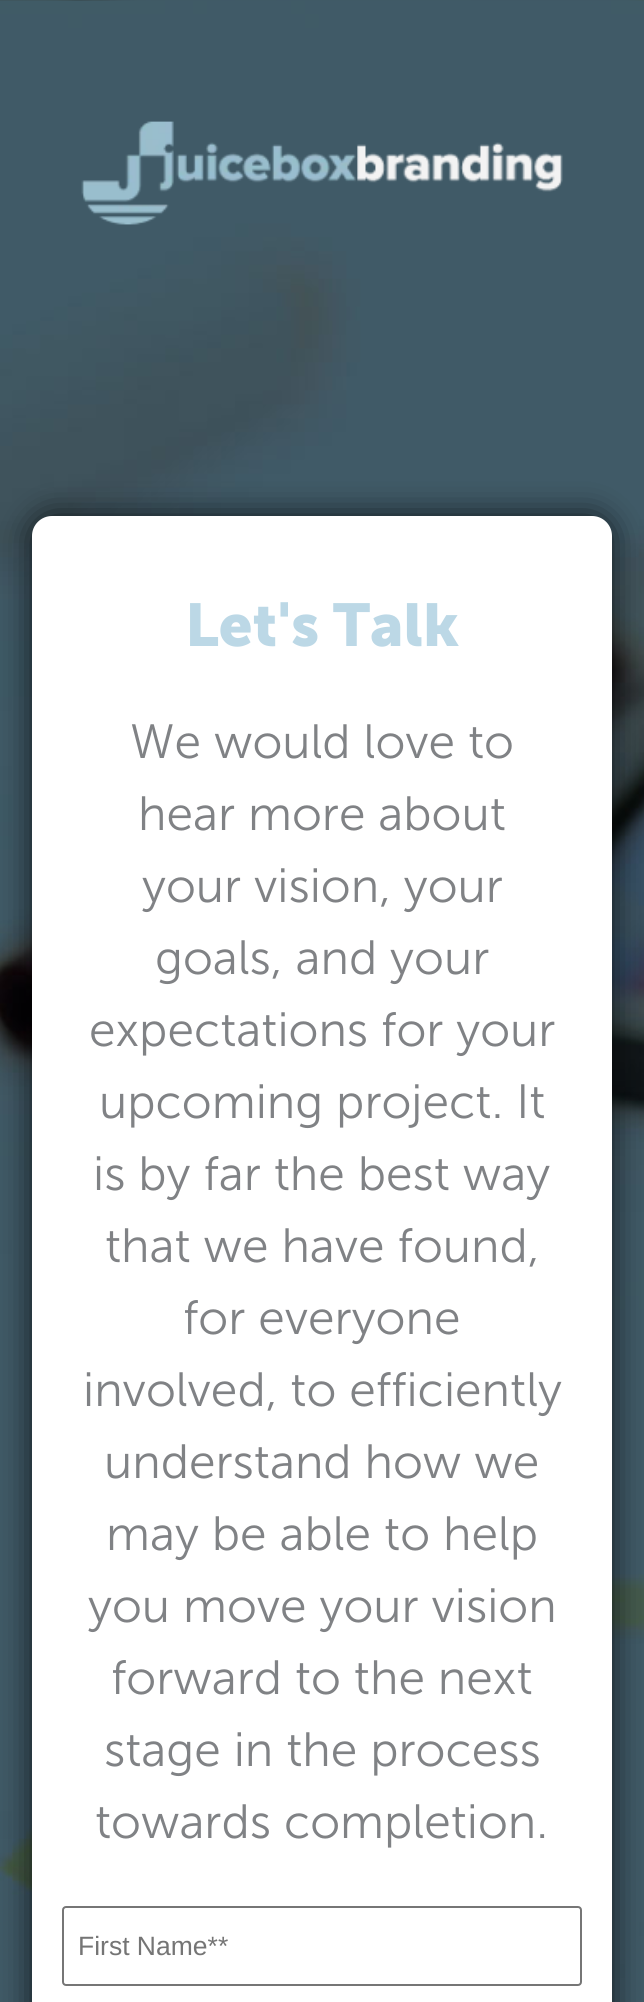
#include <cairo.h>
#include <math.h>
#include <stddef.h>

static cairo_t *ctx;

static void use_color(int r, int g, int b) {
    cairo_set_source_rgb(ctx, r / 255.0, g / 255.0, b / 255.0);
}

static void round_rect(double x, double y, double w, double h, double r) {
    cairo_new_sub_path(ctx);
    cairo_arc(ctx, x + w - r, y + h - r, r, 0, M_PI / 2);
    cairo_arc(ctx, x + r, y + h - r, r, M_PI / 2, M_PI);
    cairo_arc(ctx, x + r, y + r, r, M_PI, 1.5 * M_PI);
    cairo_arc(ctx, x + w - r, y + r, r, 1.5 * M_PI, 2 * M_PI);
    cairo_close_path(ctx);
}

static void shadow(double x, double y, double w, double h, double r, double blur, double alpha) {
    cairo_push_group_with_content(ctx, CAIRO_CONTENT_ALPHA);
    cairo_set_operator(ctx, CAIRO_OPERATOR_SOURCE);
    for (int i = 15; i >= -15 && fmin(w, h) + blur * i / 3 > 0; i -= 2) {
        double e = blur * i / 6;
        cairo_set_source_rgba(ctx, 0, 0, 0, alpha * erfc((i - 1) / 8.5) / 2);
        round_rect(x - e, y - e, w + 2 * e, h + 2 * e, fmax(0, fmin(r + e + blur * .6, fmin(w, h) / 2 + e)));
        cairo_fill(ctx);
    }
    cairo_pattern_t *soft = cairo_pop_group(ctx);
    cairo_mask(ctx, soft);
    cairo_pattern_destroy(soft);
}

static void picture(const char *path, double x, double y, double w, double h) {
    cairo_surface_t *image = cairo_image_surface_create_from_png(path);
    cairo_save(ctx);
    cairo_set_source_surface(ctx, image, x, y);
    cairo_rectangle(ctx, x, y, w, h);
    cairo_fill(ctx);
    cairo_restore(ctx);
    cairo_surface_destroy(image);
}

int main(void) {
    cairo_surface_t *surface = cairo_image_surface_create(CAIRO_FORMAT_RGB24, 644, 2002);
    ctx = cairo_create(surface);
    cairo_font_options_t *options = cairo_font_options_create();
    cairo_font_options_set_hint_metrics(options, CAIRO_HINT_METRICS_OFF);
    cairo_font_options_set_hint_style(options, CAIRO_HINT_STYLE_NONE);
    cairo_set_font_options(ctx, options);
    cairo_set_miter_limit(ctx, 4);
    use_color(255, 255, 255);
    cairo_paint(ctx);
    picture("img2.png", 0, 0, 644, 2002);
    picture("img1.png", 81, 121, 482, 104);
    use_color(0, 0, 0);
    shadow(32, 516, 580, 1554, 20, 16, 0.75);
    use_color(255, 255, 255);
    round_rect(32, 516, 580, 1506, 20);
    cairo_fill(ctx);
    cairo_select_font_face(ctx, "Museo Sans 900", CAIRO_FONT_SLANT_NORMAL, CAIRO_FONT_WEIGHT_BOLD);
    cairo_set_font_size(ctx, 60);
    use_color(188, 216, 230);
    cairo_move_to(ctx, 185, 646);
    cairo_show_text(ctx, "Let's Talk");
    cairo_select_font_face(ctx, "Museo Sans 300 Light", CAIRO_FONT_SLANT_NORMAL, CAIRO_FONT_WEIGHT_NORMAL);
    cairo_set_font_size(ctx, 48);
    use_color(128, 130, 133);
    cairo_move_to(ctx, 130, 758);
    cairo_show_text(ctx, "We would love to");
    cairo_move_to(ctx, 138, 830);
    cairo_show_text(ctx, "hear more about");
    cairo_move_to(ctx, 142, 902);
    cairo_show_text(ctx, "your vision, your");
    cairo_move_to(ctx, 155, 974);
    cairo_show_text(ctx, "goals, and your");
    cairo_move_to(ctx, 89, 1046);
    cairo_show_text(ctx, "expectations for your");
    cairo_move_to(ctx, 99, 1118);
    cairo_show_text(ctx, "upcoming project. It");
    cairo_move_to(ctx, 93, 1190);
    cairo_show_text(ctx, "is by far the best way");
    cairo_move_to(ctx, 105, 1262);
    cairo_show_text(ctx, "that we have found,");
    cairo_move_to(ctx, 183, 1334);
    cairo_show_text(ctx, "for everyone");
    cairo_move_to(ctx, 83, 1406);
    cairo_show_text(ctx, "involved, to efficiently");
    cairo_move_to(ctx, 104, 1478);
    cairo_show_text(ctx, "understand how we");
    cairo_move_to(ctx, 106, 1550);
    cairo_show_text(ctx, "may be able to help");
    cairo_move_to(ctx, 88, 1622);
    cairo_show_text(ctx, "you move your vision");
    cairo_move_to(ctx, 111, 1694);
    cairo_show_text(ctx, "forward to the next");
    cairo_move_to(ctx, 104, 1766);
    cairo_show_text(ctx, "stage in the process");
    cairo_move_to(ctx, 95, 1838);
    cairo_show_text(ctx, "towards completion.");
    round_rect(63, 1907, 518, 78, 3);
    use_color(118, 118, 118);
    cairo_stroke(ctx);
    cairo_select_font_face(ctx, "Liberation Sans", CAIRO_FONT_SLANT_NORMAL, CAIRO_FONT_WEIGHT_NORMAL);
    cairo_set_font_size(ctx, 26.5);
    use_color(117, 117, 117);
    cairo_move_to(ctx, 78, 1955);
    cairo_show_text(ctx, "First Name**");
    cairo_surface_write_to_png(surface, "result.png");
    cairo_font_options_destroy(options);
    cairo_destroy(ctx);
    cairo_surface_destroy(surface);
    return 0;
}
